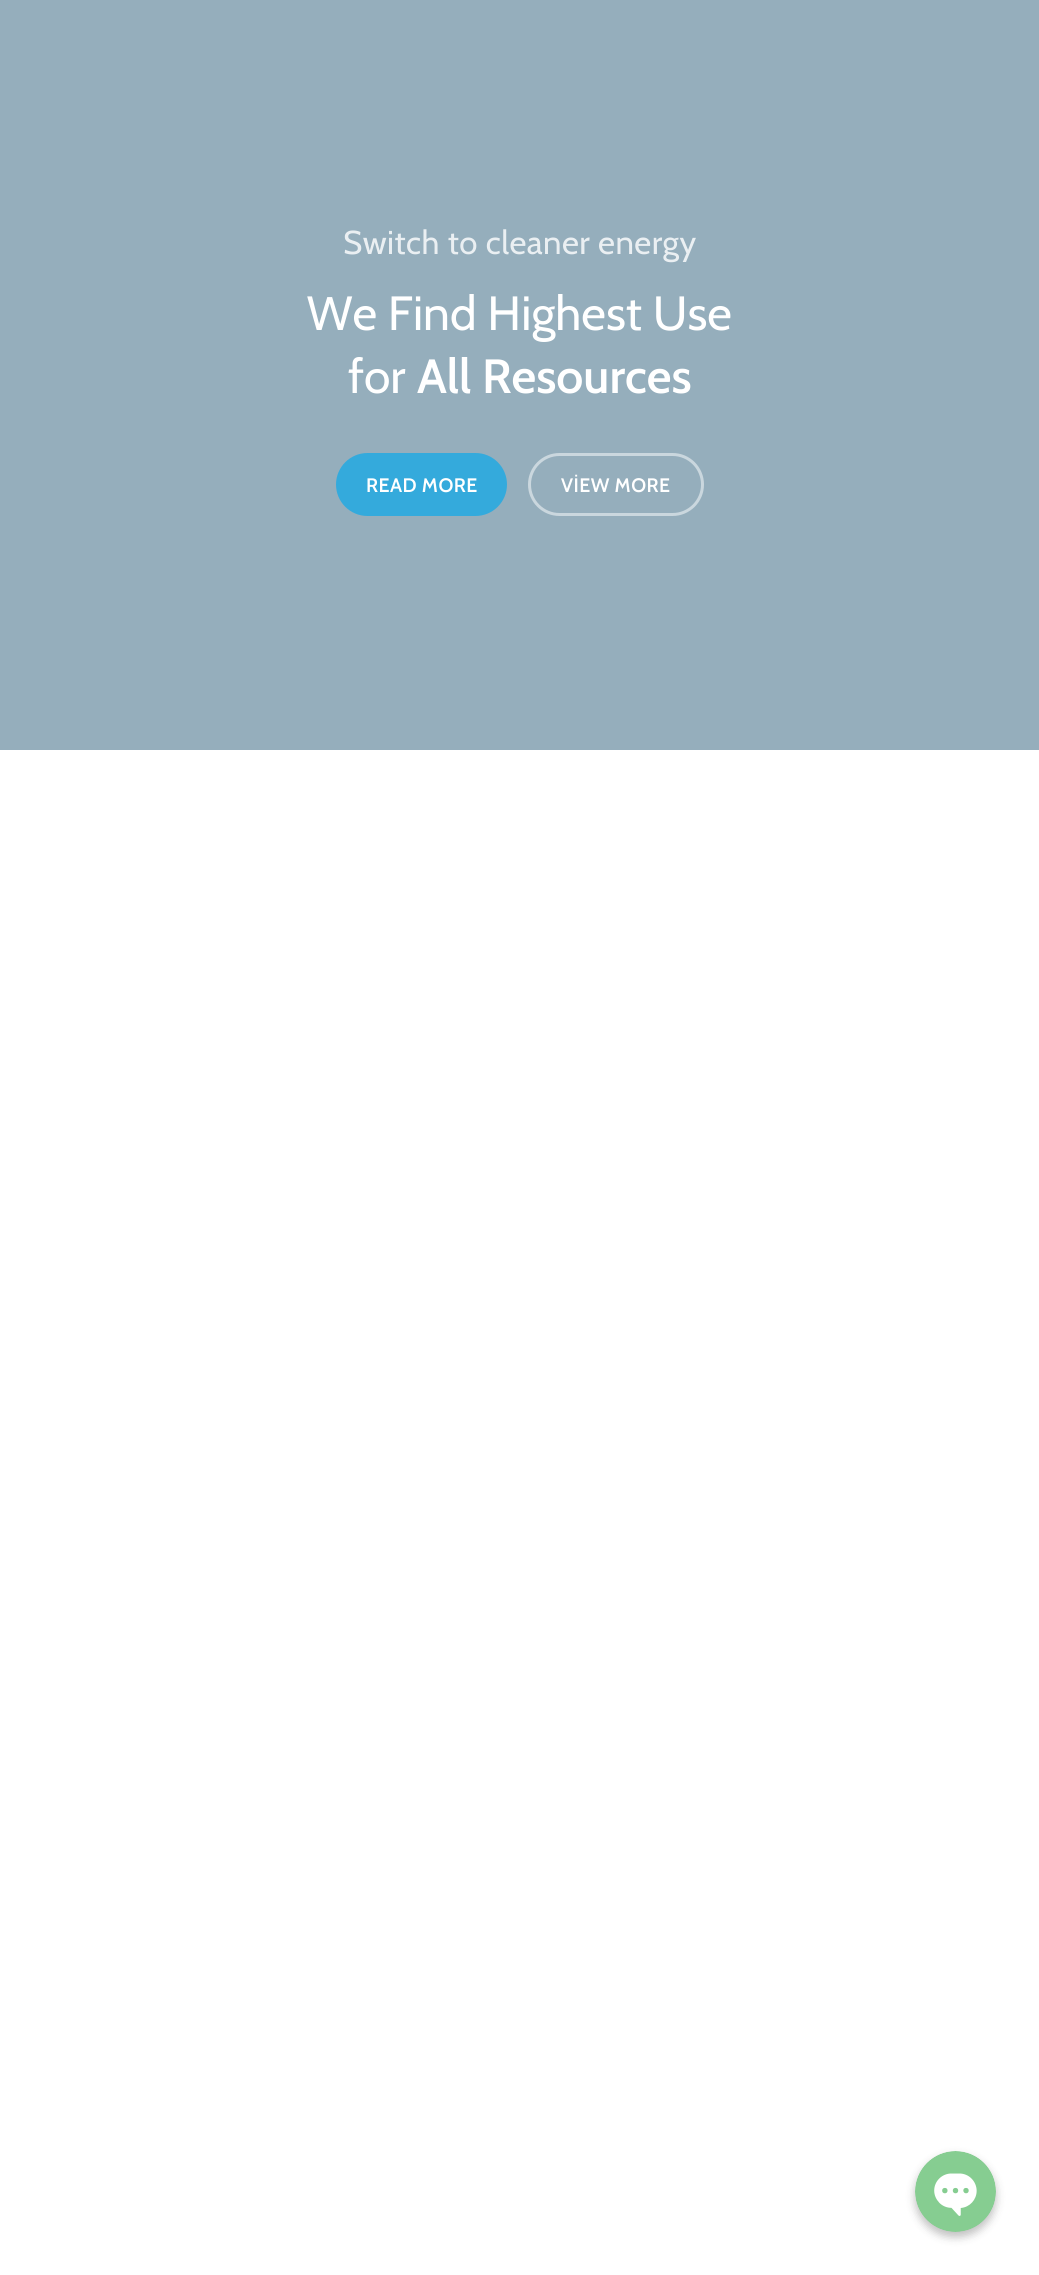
#include <cairo.h>
#include <math.h>
#include <stddef.h>

static cairo_t *ctx;

static void use_color(int r, int g, int b) {
    cairo_set_source_rgb(ctx, r / 255.0, g / 255.0, b / 255.0);
}

static void spaced_text(double x, double y, const char *s, double letter, double word) {
    cairo_move_to(ctx, x, y);
    while (*s) {
        char ch[5] = {0};
        int n = 0;
        do ch[n++] = *s++; while ((*s & 0xC0) == 0x80);
        cairo_show_text(ctx, ch);
        cairo_rel_move_to(ctx, letter + word * (*ch == ' '), 0);
    }
}

static void round_rect(double x, double y, double w, double h, double r) {
    cairo_new_sub_path(ctx);
    cairo_arc(ctx, x + w - r, y + h - r, r, 0, M_PI / 2);
    cairo_arc(ctx, x + r, y + h - r, r, M_PI / 2, M_PI);
    cairo_arc(ctx, x + r, y + r, r, M_PI, 1.5 * M_PI);
    cairo_arc(ctx, x + w - r, y + r, r, 1.5 * M_PI, 2 * M_PI);
    cairo_close_path(ctx);
}

static void shadow(double x, double y, double w, double h, double r, double blur, double alpha) {
    cairo_push_group_with_content(ctx, CAIRO_CONTENT_ALPHA);
    cairo_set_operator(ctx, CAIRO_OPERATOR_SOURCE);
    for (int i = 15; i >= -15 && fmin(w, h) + blur * i / 3 > 0; i -= 2) {
        double e = blur * i / 6;
        cairo_set_source_rgba(ctx, 0, 0, 0, alpha * erfc((i - 1) / 8.5) / 2);
        round_rect(x - e, y - e, w + 2 * e, h + 2 * e, fmax(0, fmin(r + e + blur * .6, fmin(w, h) / 2 + e)));
        cairo_fill(ctx);
    }
    cairo_pattern_t *soft = cairo_pop_group(ctx);
    cairo_mask(ctx, soft);
    cairo_pattern_destroy(soft);
}

static void picture(const char *path, double x, double y, double w, double h) {
    cairo_surface_t *image = cairo_image_surface_create_from_png(path);
    cairo_save(ctx);
    cairo_set_source_surface(ctx, image, x, y);
    cairo_rectangle(ctx, x, y, w, h);
    cairo_fill(ctx);
    cairo_restore(ctx);
    cairo_surface_destroy(image);
}

int main(void) {
    cairo_surface_t *surface = cairo_image_surface_create(CAIRO_FORMAT_RGB24, 1039, 2275);
    ctx = cairo_create(surface);
    cairo_font_options_t *options = cairo_font_options_create();
    cairo_font_options_set_hint_metrics(options, CAIRO_HINT_METRICS_OFF);
    cairo_font_options_set_hint_style(options, CAIRO_HINT_STYLE_NONE);
    cairo_set_font_options(ctx, options);
    cairo_set_miter_limit(ctx, 4);
    use_color(255, 255, 255);
    cairo_paint(ctx);
    use_color(149, 174, 188);
    cairo_rectangle(ctx, 0, 0, 1039, 750);
    cairo_fill(ctx);
    cairo_select_font_face(ctx, "Cabin", CAIRO_FONT_SLANT_NORMAL, CAIRO_FONT_WEIGHT_NORMAL);
    cairo_set_font_size(ctx, 33);
    use_color(234, 239, 242);
    spaced_text(343, 254, "Switch to cleaner energy", 0.45, 0);
    cairo_set_font_size(ctx, 48);
    use_color(255, 255, 255);
    cairo_move_to(ctx, 307, 330);
    cairo_show_text(ctx, "We Find Highest Use");
    cairo_move_to(ctx, 348, 393);
    cairo_show_text(ctx, "for");
    cairo_select_font_face(ctx, "Cabin SemiBold", CAIRO_FONT_SLANT_NORMAL, CAIRO_FONT_WEIGHT_NORMAL);
    cairo_move_to(ctx, 417, 393);
    cairo_show_text(ctx, "All Resources");
    use_color(52, 170, 220);
    round_rect(336, 453, 171, 63, 31.5);
    cairo_fill(ctx);
    cairo_set_font_size(ctx, 19.5);
    use_color(255, 255, 255);
    spaced_text(366, 492, "READ MORE", 0.45, 0);
    round_rect(529.5, 454.5, 173, 60, 30);
    use_color(202, 215, 222);
    cairo_set_line_width(ctx, 3);
    cairo_stroke(ctx);
    use_color(255, 255, 255);
    spaced_text(561, 492, "VİEW MORE", 0.45, 0);
    use_color(0, 0, 0);
    shadow(915, 2156, 81, 81, 40.5, 4.5, 0.25);
    picture("img1.png", 915, 2151, 81, 81);
    cairo_surface_write_to_png(surface, "result.png");
    cairo_font_options_destroy(options);
    cairo_destroy(ctx);
    cairo_surface_destroy(surface);
    return 0;
}
